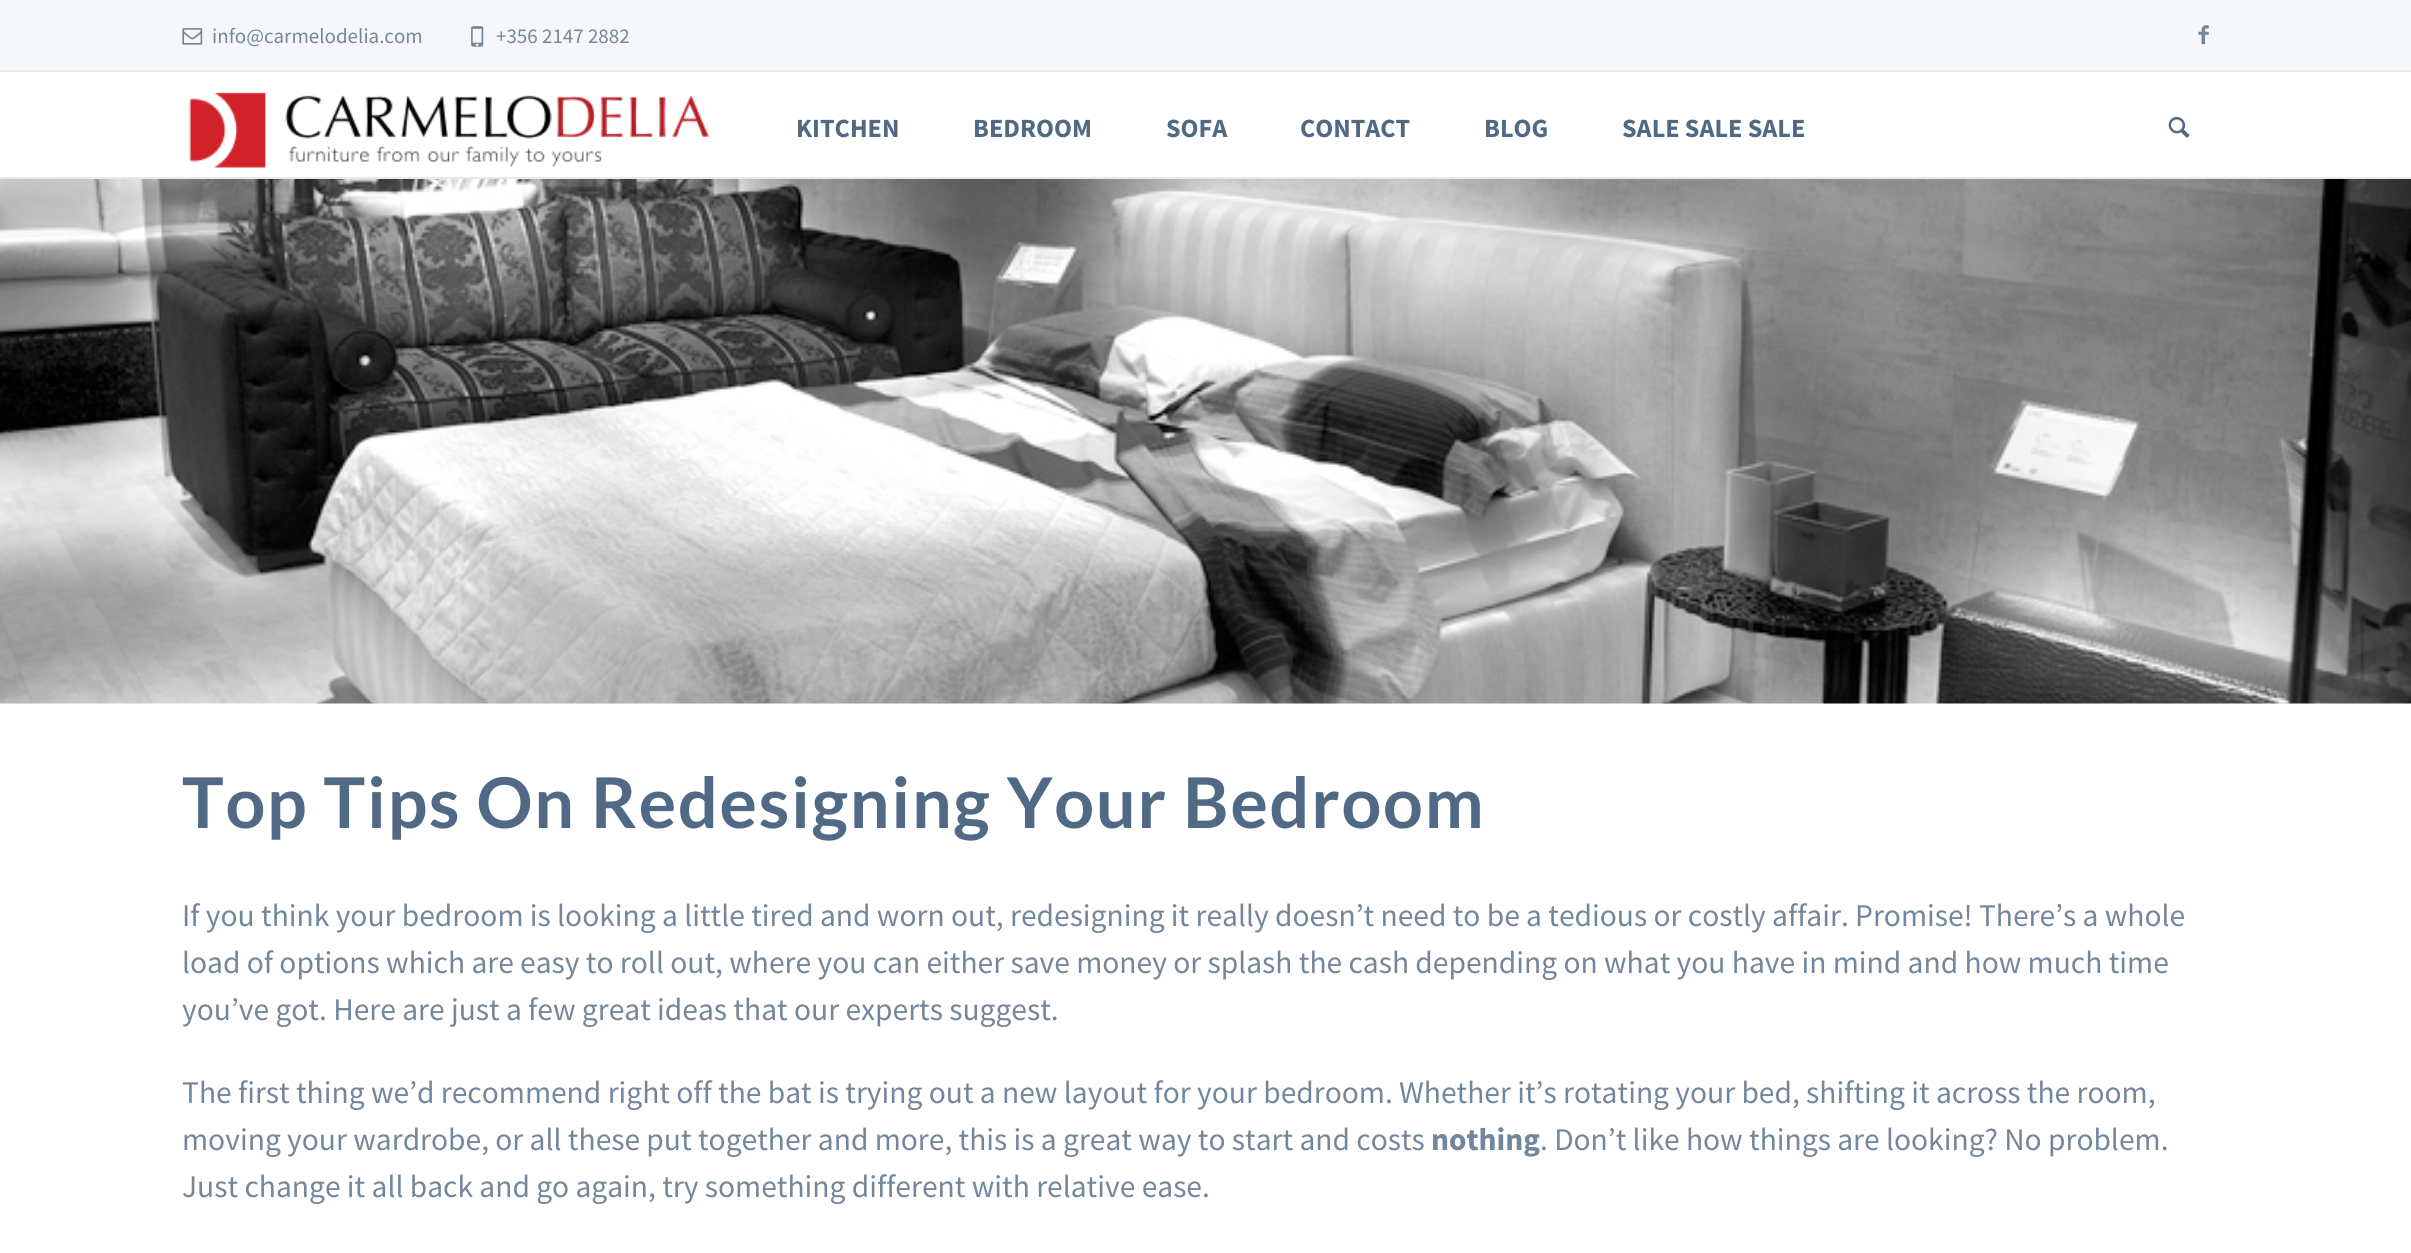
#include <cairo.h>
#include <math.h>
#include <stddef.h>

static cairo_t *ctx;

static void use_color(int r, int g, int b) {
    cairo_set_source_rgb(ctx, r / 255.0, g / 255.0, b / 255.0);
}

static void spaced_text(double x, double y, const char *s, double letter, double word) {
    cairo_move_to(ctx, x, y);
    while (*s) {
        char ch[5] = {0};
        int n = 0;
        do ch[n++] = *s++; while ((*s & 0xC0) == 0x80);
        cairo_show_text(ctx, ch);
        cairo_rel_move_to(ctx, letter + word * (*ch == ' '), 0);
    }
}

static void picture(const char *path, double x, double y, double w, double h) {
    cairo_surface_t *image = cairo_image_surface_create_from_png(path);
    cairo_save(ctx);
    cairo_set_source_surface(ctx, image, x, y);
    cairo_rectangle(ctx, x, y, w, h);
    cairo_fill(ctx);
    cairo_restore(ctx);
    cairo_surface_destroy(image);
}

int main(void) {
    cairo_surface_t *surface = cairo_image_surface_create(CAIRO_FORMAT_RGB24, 2411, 1253);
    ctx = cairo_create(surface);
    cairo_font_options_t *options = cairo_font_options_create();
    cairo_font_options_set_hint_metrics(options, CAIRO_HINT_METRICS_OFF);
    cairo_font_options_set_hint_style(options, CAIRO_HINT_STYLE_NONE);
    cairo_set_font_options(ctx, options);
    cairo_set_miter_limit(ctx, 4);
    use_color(255, 255, 255);
    cairo_paint(ctx);
    use_color(245, 247, 250);
    cairo_rectangle(ctx, 0, 0, 2411, 70);
    cairo_fill(ctx);
    use_color(230, 233, 237);
    cairo_rectangle(ctx, 0, 70, 2411, 2);
    cairo_fill(ctx);
    picture("img1.png", 182, 28, 21, 17);
    cairo_select_font_face(ctx, "Source Sans Pro", CAIRO_FONT_SLANT_NORMAL, CAIRO_FONT_WEIGHT_NORMAL);
    cairo_set_font_size(ctx, 21);
    use_color(115, 135, 156);
    cairo_move_to(ctx, 212, 43);
    cairo_show_text(ctx, "info@carmelodelia.com");
    picture("img2.png", 471, 26, 13, 21);
    cairo_move_to(ctx, 496, 43);
    cairo_show_text(ctx, "+356 2147 2882");
    picture("img3.png", 2198, 25, 11, 20);
    use_color(230, 233, 237);
    cairo_rectangle(ctx, 0, 177, 2411, 2);
    cairo_fill(ctx);
    picture("img4.png", 189, 92, 521, 76);
    cairo_select_font_face(ctx, "Source Sans Pro", CAIRO_FONT_SLANT_NORMAL, CAIRO_FONT_WEIGHT_BOLD);
    cairo_set_font_size(ctx, 26.25);
    use_color(80, 106, 133);
    cairo_move_to(ctx, 796, 137);
    cairo_show_text(ctx, "KITCHEN");
    cairo_move_to(ctx, 973, 137);
    cairo_show_text(ctx, "BEDROOM");
    cairo_move_to(ctx, 1166, 137);
    cairo_show_text(ctx, "SOFA");
    cairo_move_to(ctx, 1300, 137);
    cairo_show_text(ctx, "CONTACT");
    cairo_move_to(ctx, 1484, 137);
    cairo_show_text(ctx, "BLOG");
    cairo_move_to(ctx, 1622, 137);
    cairo_show_text(ctx, "SALE SALE SALE");
    picture("img5.png", 2168, 116, 22, 22);
    picture("img6.png", 0, 179, 2411, 525);
    cairo_select_font_face(ctx, "Lato", CAIRO_FONT_SLANT_NORMAL, CAIRO_FONT_WEIGHT_BOLD);
    cairo_set_font_size(ctx, 70);
    spaced_text(182, 828, "Top Tips On Redesigning Your Bedroom", 1.75, 0);
    cairo_select_font_face(ctx, "Source Sans Pro", CAIRO_FONT_SLANT_NORMAL, CAIRO_FONT_WEIGHT_NORMAL);
    cairo_set_font_size(ctx, 31.5);
    use_color(115, 135, 156);
    cairo_move_to(ctx, 182, 926);
    cairo_show_text(ctx, "If you think your bedroom is looking a little tired and worn out, redesigning it really doesn’t need to be a tedious or costly affair. Promise! There’s a whole");
    cairo_move_to(ctx, 182, 973);
    cairo_show_text(ctx, "load of options which are easy to roll out, where you can either save money or splash the cash depending on what you have in mind and how much time");
    cairo_move_to(ctx, 182, 1020);
    cairo_show_text(ctx, "you’ve got. Here are just a few great ideas that our experts suggest.");
    cairo_move_to(ctx, 182, 1103);
    cairo_show_text(ctx, "The first thing we’d recommend right off the bat is trying out a new layout for your bedroom. Whether it’s rotating your bed, shifting it across the room,");
    cairo_move_to(ctx, 182, 1150);
    cairo_show_text(ctx, "moving your wardrobe, or all these put together and more, this is a great way to start and costs");
    cairo_select_font_face(ctx, "Source Sans Pro", CAIRO_FONT_SLANT_NORMAL, CAIRO_FONT_WEIGHT_BOLD);
    cairo_move_to(ctx, 1431, 1150);
    cairo_show_text(ctx, "nothing");
    cairo_select_font_face(ctx, "Source Sans Pro", CAIRO_FONT_SLANT_NORMAL, CAIRO_FONT_WEIGHT_NORMAL);
    cairo_move_to(ctx, 1540, 1150);
    cairo_show_text(ctx, ". Don’t like how things are looking? No problem.");
    cairo_move_to(ctx, 182, 1197);
    cairo_show_text(ctx, "Just change it all back and go again, try something different with relative ease.");
    cairo_surface_write_to_png(surface, "result.png");
    cairo_font_options_destroy(options);
    cairo_destroy(ctx);
    cairo_surface_destroy(surface);
    return 0;
}
